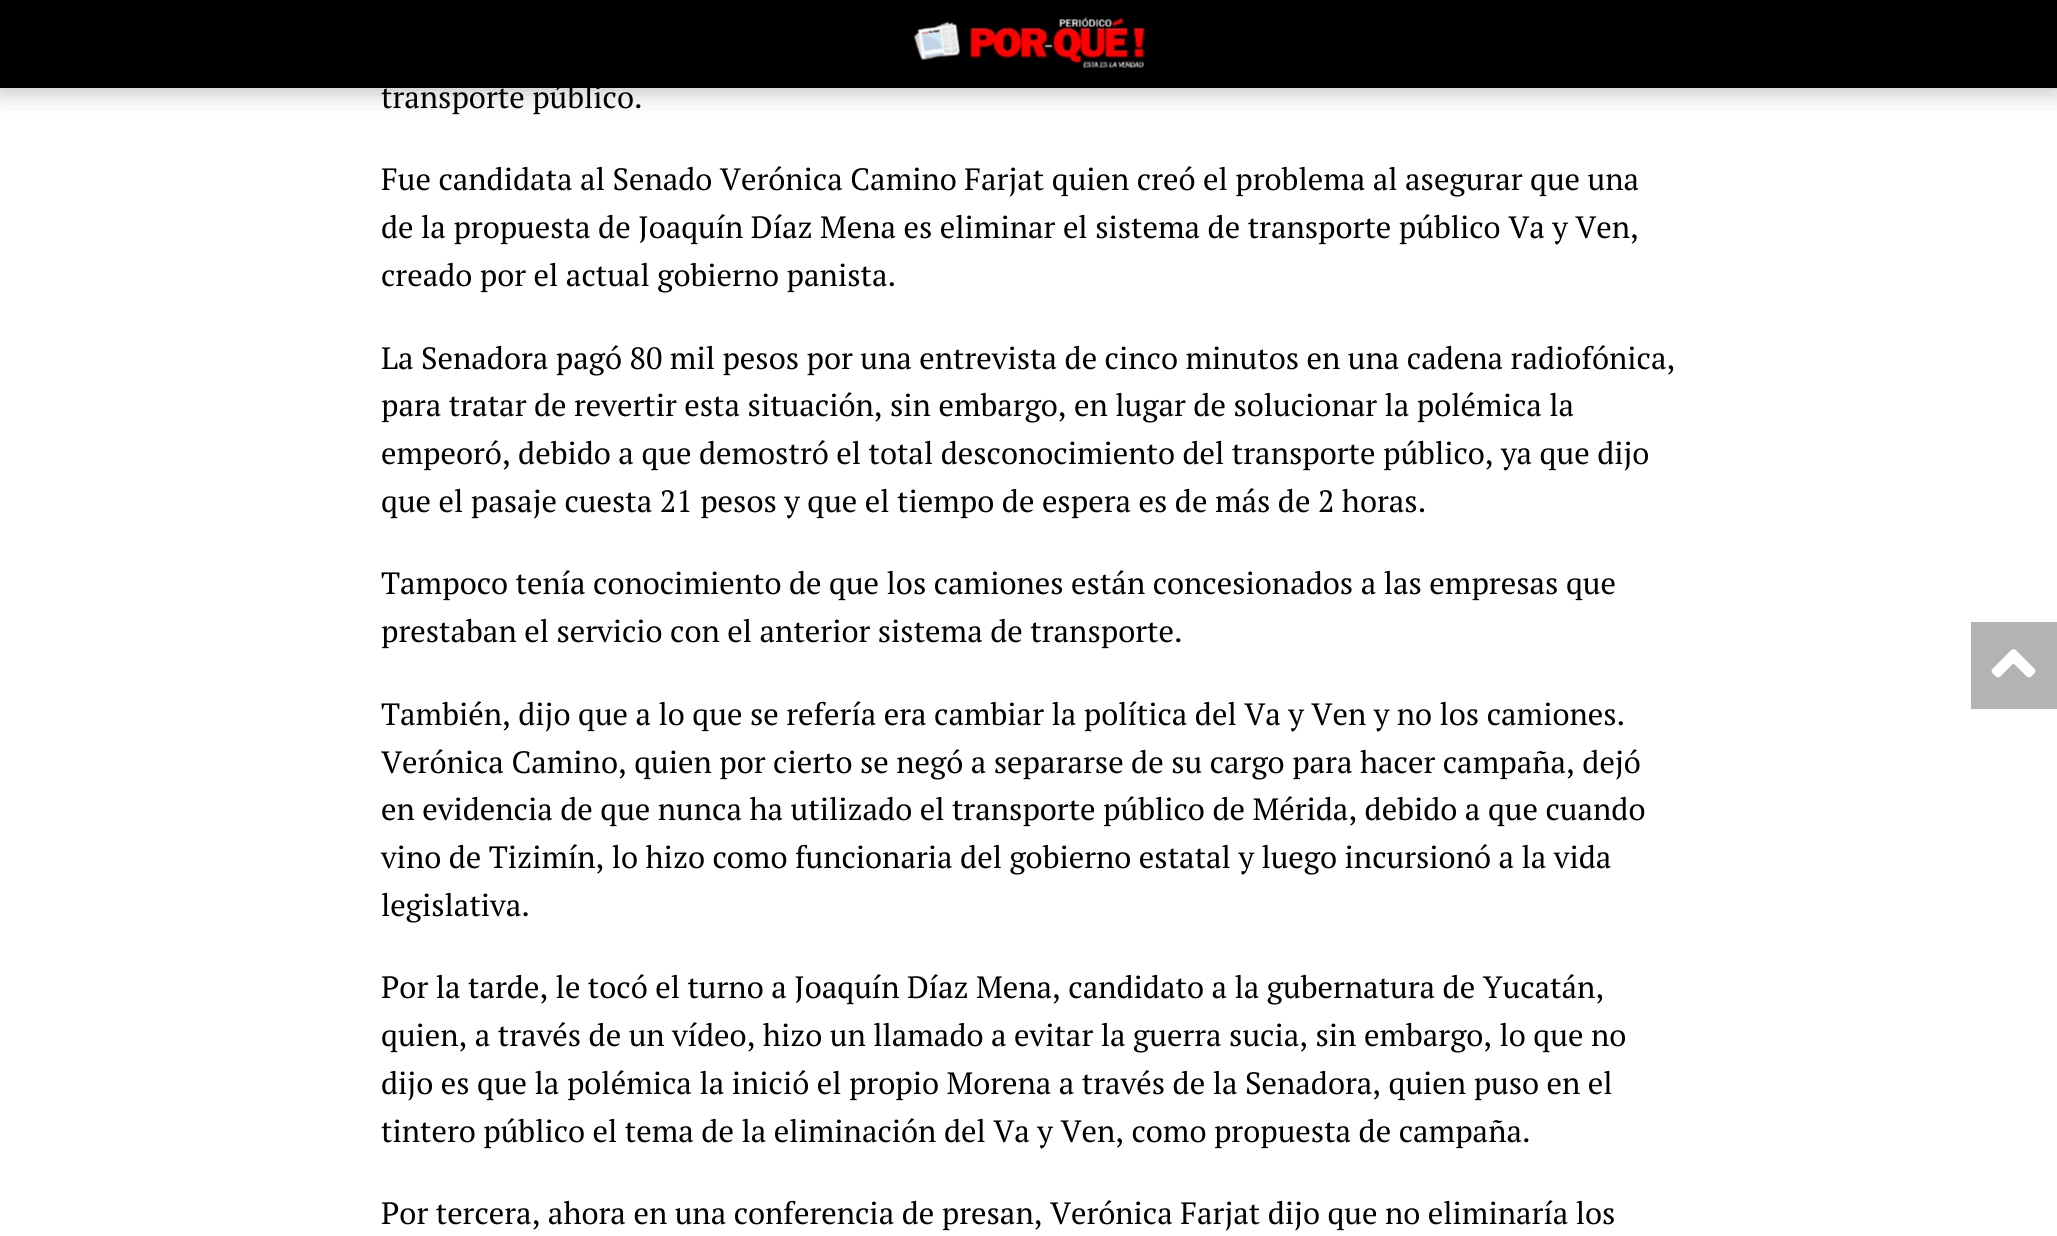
#include <cairo.h>
#include <math.h>
#include <stddef.h>

static cairo_t *ctx;

static void use_color(int r, int g, int b) {
    cairo_set_source_rgb(ctx, r / 255.0, g / 255.0, b / 255.0);
}

static void round_rect(double x, double y, double w, double h, double r) {
    cairo_new_sub_path(ctx);
    cairo_arc(ctx, x + w - r, y + h - r, r, 0, M_PI / 2);
    cairo_arc(ctx, x + r, y + h - r, r, M_PI / 2, M_PI);
    cairo_arc(ctx, x + r, y + r, r, M_PI, 1.5 * M_PI);
    cairo_arc(ctx, x + w - r, y + r, r, 1.5 * M_PI, 2 * M_PI);
    cairo_close_path(ctx);
}

static void shadow(double x, double y, double w, double h, double r, double blur, double alpha) {
    cairo_push_group_with_content(ctx, CAIRO_CONTENT_ALPHA);
    cairo_set_operator(ctx, CAIRO_OPERATOR_SOURCE);
    for (int i = 15; i >= -15 && fmin(w, h) + blur * i / 3 > 0; i -= 2) {
        double e = blur * i / 6;
        cairo_set_source_rgba(ctx, 0, 0, 0, alpha * erfc((i - 1) / 8.5) / 2);
        round_rect(x - e, y - e, w + 2 * e, h + 2 * e, fmax(0, fmin(r + e + blur * .6, fmin(w, h) / 2 + e)));
        cairo_fill(ctx);
    }
    cairo_pattern_t *soft = cairo_pop_group(ctx);
    cairo_mask(ctx, soft);
    cairo_pattern_destroy(soft);
}

static void picture(const char *path, double x, double y, double w, double h) {
    cairo_surface_t *image = cairo_image_surface_create_from_png(path);
    cairo_save(ctx);
    cairo_set_source_surface(ctx, image, x, y);
    cairo_rectangle(ctx, x, y, w, h);
    cairo_fill(ctx);
    cairo_restore(ctx);
    cairo_surface_destroy(image);
}

int main(void) {
    cairo_surface_t *surface = cairo_image_surface_create(CAIRO_FORMAT_RGB24, 2057, 1236);
    ctx = cairo_create(surface);
    cairo_font_options_t *options = cairo_font_options_create();
    cairo_font_options_set_hint_metrics(options, CAIRO_HINT_METRICS_OFF);
    cairo_font_options_set_hint_style(options, CAIRO_HINT_STYLE_NONE);
    cairo_set_font_options(ctx, options);
    cairo_set_miter_limit(ctx, 4);
    use_color(255, 255, 255);
    cairo_paint(ctx);
    use_color(0, 0, 0);
    shadow(0, 2, 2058, 87, 0, 14, 0.3);
    use_color(0, 0, 0);
    cairo_rectangle(ctx, 0, 0, 2057, 88);
    cairo_fill(ctx);
    picture("img1.png", 913, 17, 232, 51);
    cairo_select_font_face(ctx, "PT Serif", CAIRO_FONT_SLANT_NORMAL, CAIRO_FONT_WEIGHT_NORMAL);
    cairo_set_font_size(ctx, 30.8);
    cairo_move_to(ctx, 381, 108);
    cairo_show_text(ctx, "transporte público.");
    cairo_move_to(ctx, 381, 190);
    cairo_show_text(ctx, "Fue candidata al Senado Verónica Camino Farjat quien creó el problema al asegurar que una");
    cairo_move_to(ctx, 381, 238);
    cairo_show_text(ctx, "de la propuesta de Joaquín Díaz Mena es eliminar el sistema de transporte público Va y Ven,");
    cairo_move_to(ctx, 381, 286);
    cairo_show_text(ctx, "creado por el actual gobierno panista.");
    cairo_move_to(ctx, 381, 369);
    cairo_show_text(ctx, "La Senadora pagó 80 mil pesos por una entrevista de cinco minutos en una cadena radiofónica,");
    cairo_move_to(ctx, 381, 416);
    cairo_show_text(ctx, "para tratar de revertir esta situación, sin embargo, en lugar de solucionar la polémica la");
    cairo_move_to(ctx, 381, 464);
    cairo_show_text(ctx, "empeoró, debido a que demostró el total desconocimiento del transporte público, ya que dijo");
    cairo_move_to(ctx, 381, 512);
    cairo_show_text(ctx, "que el pasaje cuesta 21 pesos y que el tiempo de espera es de más de 2 horas.");
    cairo_move_to(ctx, 381, 594);
    cairo_show_text(ctx, "Tampoco tenía conocimiento de que los camiones están concesionados a las empresas que");
    cairo_move_to(ctx, 381, 642);
    cairo_show_text(ctx, "prestaban el servicio con el anterior sistema de transporte.");
    cairo_move_to(ctx, 381, 725);
    cairo_show_text(ctx, "También, dijo que a lo que se refería era cambiar la política del Va y Ven y no los camiones.");
    cairo_move_to(ctx, 381, 773);
    cairo_show_text(ctx, "Verónica Camino, quien por cierto se negó a separarse de su cargo para hacer campaña, dejó");
    cairo_move_to(ctx, 381, 820);
    cairo_show_text(ctx, "en evidencia de que nunca ha utilizado el transporte público de Mérida, debido a que cuando");
    cairo_move_to(ctx, 381, 868);
    cairo_show_text(ctx, "vino de Tizimín, lo hizo como funcionaria del gobierno estatal y luego incursionó a la vida");
    cairo_move_to(ctx, 381, 916);
    cairo_show_text(ctx, "legislativa.");
    cairo_move_to(ctx, 381, 998);
    cairo_show_text(ctx, "Por la tarde, le tocó el turno a Joaquín Díaz Mena, candidato a la gubernatura de Yucatán,");
    cairo_move_to(ctx, 381, 1046);
    cairo_show_text(ctx, "quien, a través de un vídeo, hizo un llamado a evitar la guerra sucia, sin embargo, lo que no");
    cairo_move_to(ctx, 381, 1094);
    cairo_show_text(ctx, "dijo es que la polémica la inició el propio Morena a través de la Senadora, quien puso en el");
    cairo_move_to(ctx, 381, 1142);
    cairo_show_text(ctx, "tintero público el tema de la eliminación del Va y Ven, como propuesta de campaña.");
    cairo_move_to(ctx, 381, 1224);
    cairo_show_text(ctx, "Por tercera, ahora en una conferencia de presan, Verónica Farjat dijo que no eliminaría los");
    use_color(179, 179, 179);
    cairo_rectangle(ctx, 1971, 622, 86, 87);
    cairo_fill(ctx);
    picture("img2.png", 1991, 649, 45, 29);
    cairo_surface_write_to_png(surface, "result.png");
    cairo_font_options_destroy(options);
    cairo_destroy(ctx);
    cairo_surface_destroy(surface);
    return 0;
}
